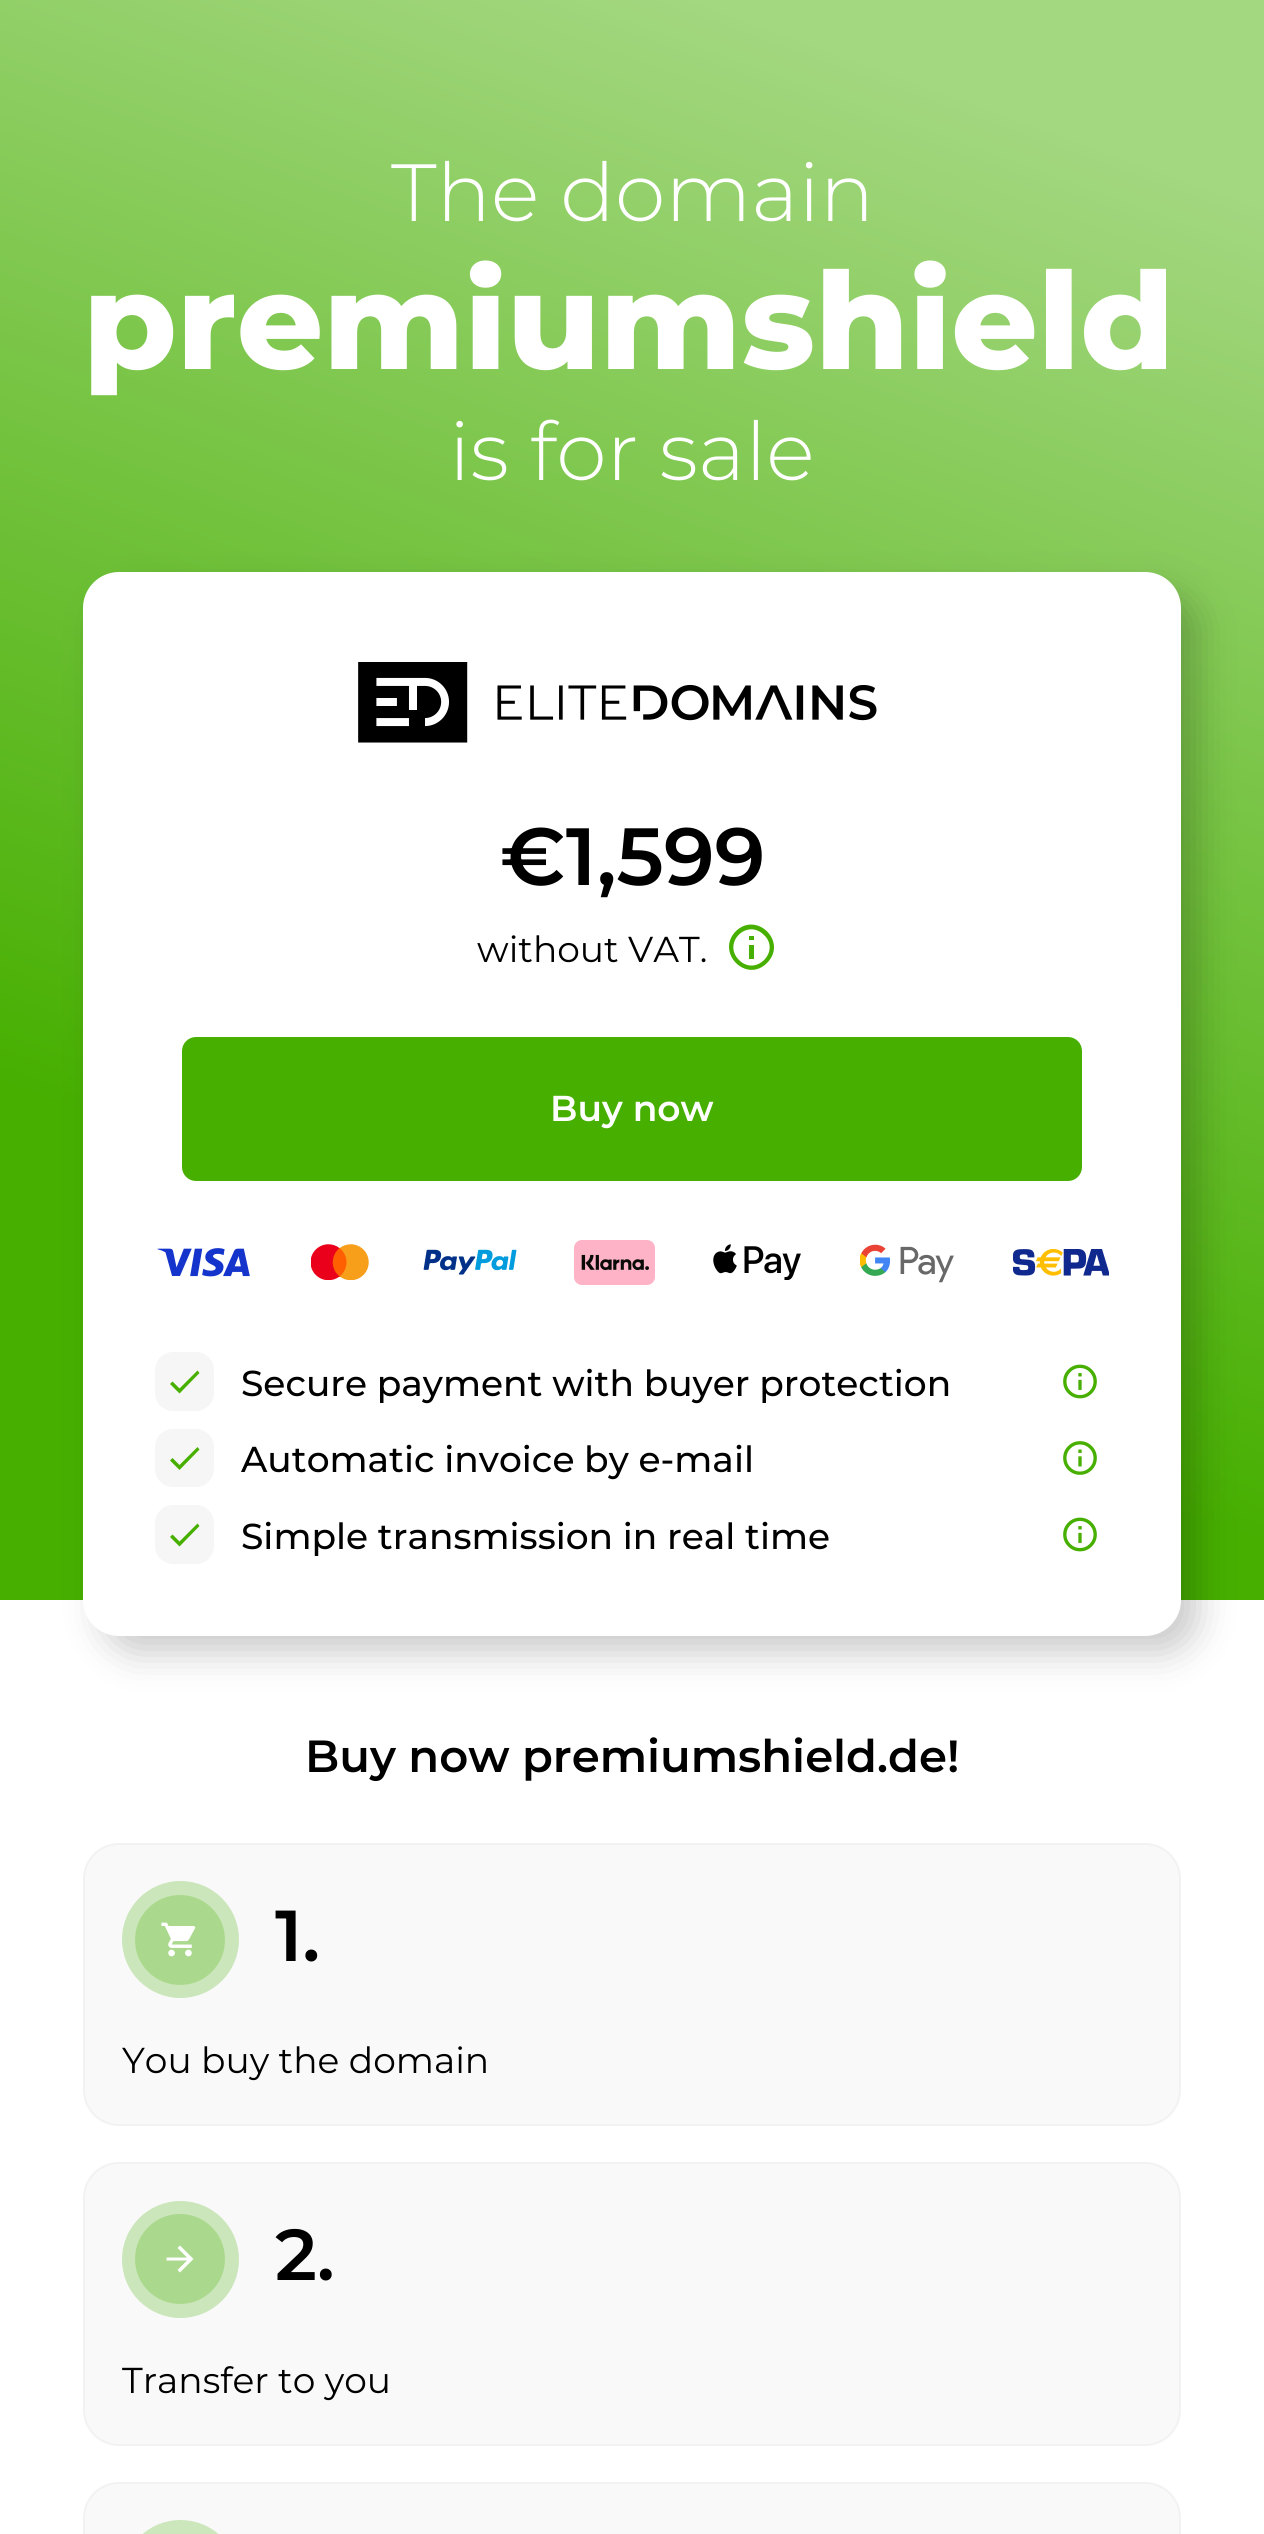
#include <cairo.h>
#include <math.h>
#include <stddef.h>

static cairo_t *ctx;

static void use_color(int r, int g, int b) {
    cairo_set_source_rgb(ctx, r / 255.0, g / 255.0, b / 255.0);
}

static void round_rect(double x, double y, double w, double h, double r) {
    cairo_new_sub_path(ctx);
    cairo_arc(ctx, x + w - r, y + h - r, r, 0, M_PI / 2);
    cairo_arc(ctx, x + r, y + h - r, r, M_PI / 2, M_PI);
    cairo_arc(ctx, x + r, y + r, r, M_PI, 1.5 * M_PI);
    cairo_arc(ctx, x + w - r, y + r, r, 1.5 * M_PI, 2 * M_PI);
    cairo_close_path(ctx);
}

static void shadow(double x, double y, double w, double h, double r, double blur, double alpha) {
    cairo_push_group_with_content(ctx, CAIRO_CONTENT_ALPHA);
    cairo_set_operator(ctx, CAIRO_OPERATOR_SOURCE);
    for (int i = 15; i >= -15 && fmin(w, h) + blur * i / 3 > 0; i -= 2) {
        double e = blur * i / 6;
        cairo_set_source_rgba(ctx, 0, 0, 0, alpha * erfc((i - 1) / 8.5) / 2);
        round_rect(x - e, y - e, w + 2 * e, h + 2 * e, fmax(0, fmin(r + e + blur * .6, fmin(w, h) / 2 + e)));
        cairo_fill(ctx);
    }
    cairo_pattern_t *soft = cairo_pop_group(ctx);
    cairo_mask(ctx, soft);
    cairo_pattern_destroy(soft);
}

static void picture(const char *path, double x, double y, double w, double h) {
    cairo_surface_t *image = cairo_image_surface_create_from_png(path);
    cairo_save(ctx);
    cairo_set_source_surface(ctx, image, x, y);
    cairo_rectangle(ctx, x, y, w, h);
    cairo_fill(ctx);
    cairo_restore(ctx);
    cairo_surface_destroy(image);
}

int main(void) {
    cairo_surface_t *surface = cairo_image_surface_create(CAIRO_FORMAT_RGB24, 1264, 2534);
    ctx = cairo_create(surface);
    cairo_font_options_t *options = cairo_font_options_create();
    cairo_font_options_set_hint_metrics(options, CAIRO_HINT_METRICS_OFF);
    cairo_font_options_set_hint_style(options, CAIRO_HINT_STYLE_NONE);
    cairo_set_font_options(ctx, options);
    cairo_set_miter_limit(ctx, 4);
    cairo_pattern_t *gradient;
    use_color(255, 255, 255);
    cairo_paint(ctx);
    gradient = cairo_pattern_create_linear(301, 1709, 963, -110);
    cairo_pattern_add_color_stop_rgba(gradient, 0.25, 0.275, 0.686, 0, 1);
    cairo_pattern_add_color_stop_rgba(gradient, 0.9, 0.639, 0.843, 0.502, 1);
    cairo_set_source(ctx, gradient);
    cairo_pattern_destroy(gradient);
    cairo_rectangle(ctx, 0, 0, 1264, 1600);
    cairo_fill(ctx);
    cairo_select_font_face(ctx, "Montserrat Light", CAIRO_FONT_SLANT_NORMAL, CAIRO_FONT_WEIGHT_NORMAL);
    cairo_set_font_size(ctx, 81);
    use_color(255, 255, 255);
    cairo_move_to(ctx, 391, 221);
    cairo_show_text(ctx, "The domain");
    cairo_select_font_face(ctx, "Montserrat ExtraBold", CAIRO_FONT_SLANT_NORMAL, CAIRO_FONT_WEIGHT_NORMAL);
    cairo_set_font_size(ctx, 135);
    cairo_move_to(ctx, 83, 369);
    cairo_show_text(ctx, "premiumshield");
    cairo_select_font_face(ctx, "Montserrat Light", CAIRO_FONT_SLANT_NORMAL, CAIRO_FONT_WEIGHT_NORMAL);
    cairo_set_font_size(ctx, 81);
    cairo_move_to(ctx, 449, 480);
    cairo_show_text(ctx, "is for sale");
    use_color(0, 0, 0);
    shadow(101, 590, 1098, 1064, 36, 18, 0.2);
    use_color(255, 255, 255);
    round_rect(83, 572, 1098, 1064, 36);
    cairo_fill(ctx);
    picture("img1.png", 358, 662, 519, 81);
    cairo_select_font_face(ctx, "Montserrat SemiBold", CAIRO_FONT_SLANT_NORMAL, CAIRO_FONT_WEIGHT_NORMAL);
    use_color(0, 0, 0);
    cairo_move_to(ctx, 500, 885);
    cairo_show_text(ctx, "€1,599");
    cairo_select_font_face(ctx, "Montserrat", CAIRO_FONT_SLANT_NORMAL, CAIRO_FONT_WEIGHT_NORMAL);
    cairo_set_font_size(ctx, 36);
    cairo_move_to(ctx, 477, 962);
    cairo_show_text(ctx, "without VAT.");
    use_color(70, 175, 0);
    cairo_new_path(ctx);
    cairo_move_to(ctx, 749, 940);
    cairo_line_to(ctx, 749, 936);
    cairo_line_to(ctx, 754, 936);
    cairo_line_to(ctx, 754, 940);
    cairo_close_path(ctx);
    cairo_move_to(ctx, 739, 960);
    cairo_curve_to(ctx, 756, 977, 781, 951, 764, 935);
    cairo_curve_to(ctx, 747, 918, 722, 943, 739, 960);
    cairo_close_path(ctx);
    cairo_move_to(ctx, 736, 931);
    cairo_curve_to(ctx, 757, 911, 788, 942, 767, 963);
    cairo_curve_to(ctx, 746, 984, 715, 952, 736, 931);
    cairo_close_path(ctx);
    cairo_move_to(ctx, 749, 959);
    cairo_line_to(ctx, 749, 945);
    cairo_line_to(ctx, 754, 945);
    cairo_line_to(ctx, 754, 959);
    cairo_close_path(ctx);
    cairo_fill(ctx);
    round_rect(182, 1037, 900, 144, 14);
    cairo_fill(ctx);
    cairo_select_font_face(ctx, "Montserrat SemiBold", CAIRO_FONT_SLANT_NORMAL, CAIRO_FONT_WEIGHT_NORMAL);
    use_color(255, 255, 255);
    cairo_move_to(ctx, 550, 1121);
    cairo_show_text(ctx, "Buy now");
    picture("img2.png", 157, 1248, 93, 29);
    picture("img3.png", 311, 1244, 58, 36);
    picture("img4.png", 423, 1249, 94, 26);
    picture("img5.png", 574, 1240, 81, 45);
    picture("img6.png", 713, 1244, 88, 36);
    picture("img7.png", 860, 1244, 94, 39);
    picture("img8.png", 1013, 1249, 96, 27);
    use_color(246, 246, 246);
    round_rect(155, 1352, 59, 59, 18);
    cairo_fill(ctx);
    use_color(70, 175, 0);
    cairo_new_path(ctx);
    cairo_move_to(ctx, 179.5, 1388.5);
    cairo_line_to(ctx, 197.5, 1370.5);
    cairo_line_to(ctx, 199.5, 1373);
    cairo_line_to(ctx, 179.5, 1393.5);
    cairo_line_to(ctx, 170, 1384);
    cairo_line_to(ctx, 172.5, 1381.5);
    cairo_close_path(ctx);
    cairo_fill(ctx);
    cairo_select_font_face(ctx, "Montserrat Medium", CAIRO_FONT_SLANT_NORMAL, CAIRO_FONT_WEIGHT_NORMAL);
    use_color(0, 0, 0);
    cairo_move_to(ctx, 241, 1396);
    cairo_show_text(ctx, "Secure payment with buyer protection");
    picture("img9.png", 1063, 1364, 34, 35);
    use_color(246, 246, 246);
    round_rect(155, 1429, 59, 58, 18);
    cairo_fill(ctx);
    use_color(70, 175, 0);
    cairo_new_path(ctx);
    cairo_move_to(ctx, 179.5, 1465);
    cairo_line_to(ctx, 197.5, 1447);
    cairo_line_to(ctx, 199.5, 1449.5);
    cairo_line_to(ctx, 179.5, 1470);
    cairo_line_to(ctx, 170, 1460.5);
    cairo_line_to(ctx, 172.5, 1458);
    cairo_close_path(ctx);
    cairo_fill(ctx);
    use_color(0, 0, 0);
    cairo_move_to(ctx, 241, 1472);
    cairo_show_text(ctx, "Automatic invoice by e-mail");
    picture("img10.png", 1063, 1441, 34, 34);
    use_color(246, 246, 246);
    round_rect(155, 1505, 59, 59, 18);
    cairo_fill(ctx);
    use_color(70, 175, 0);
    cairo_new_path(ctx);
    cairo_move_to(ctx, 179.5, 1541.5);
    cairo_line_to(ctx, 197.5, 1523.5);
    cairo_line_to(ctx, 199.5, 1526);
    cairo_line_to(ctx, 179.5, 1546.5);
    cairo_line_to(ctx, 170, 1537);
    cairo_line_to(ctx, 172.5, 1534.5);
    cairo_close_path(ctx);
    cairo_fill(ctx);
    use_color(0, 0, 0);
    cairo_move_to(ctx, 241, 1549);
    cairo_show_text(ctx, "Simple transmission in real time");
    picture("img9.png", 1063, 1517, 34, 35);
    cairo_select_font_face(ctx, "Montserrat SemiBold", CAIRO_FONT_SLANT_NORMAL, CAIRO_FONT_WEIGHT_NORMAL);
    cairo_set_font_size(ctx, 45);
    cairo_move_to(ctx, 305, 1772);
    cairo_show_text(ctx, "Buy now premiumshield.de!");
    use_color(249, 249, 249);
    round_rect(84, 1844, 1096, 281, 35);
    cairo_fill_preserve(ctx);
    use_color(242, 242, 242);
    cairo_stroke(ctx);
    use_color(204, 231, 187);
    cairo_arc(ctx, 180, 1940, 45, 0, 2 * M_PI);
    cairo_fill(ctx);
    cairo_set_source_rgba(ctx, 0.275, 0.686, 0, 0.25);
    cairo_arc(ctx, 180.5, 1939.5, 58.5, 0, 2 * M_PI);
    cairo_fill(ctx);
    picture("img11.png", 161, 1922, 35, 35);
    cairo_set_font_size(ctx, 72);
    use_color(0, 0, 0);
    cairo_move_to(ctx, 275, 1961);
    cairo_show_text(ctx, "1.");
    cairo_select_font_face(ctx, "Montserrat", CAIRO_FONT_SLANT_NORMAL, CAIRO_FONT_WEIGHT_NORMAL);
    cairo_set_font_size(ctx, 36);
    cairo_move_to(ctx, 122, 2073);
    cairo_show_text(ctx, "You buy the domain");
    use_color(249, 249, 249);
    round_rect(84, 2163, 1096, 282, 35);
    cairo_fill_preserve(ctx);
    use_color(242, 242, 242);
    cairo_stroke(ctx);
    use_color(204, 231, 187);
    cairo_arc(ctx, 180, 2259, 45, 0, 2 * M_PI);
    cairo_fill(ctx);
    cairo_set_source_rgba(ctx, 0.275, 0.686, 0, 0.25);
    cairo_arc(ctx, 180.5, 2259.5, 58.5, 0, 2 * M_PI);
    cairo_fill(ctx);
    use_color(255, 255, 255);
    cairo_new_path(ctx);
    cairo_move_to(ctx, 180, 2245.5);
    cairo_line_to(ctx, 193.5, 2259);
    cairo_line_to(ctx, 180, 2272.5);
    cairo_line_to(ctx, 177.5, 2270);
    cairo_line_to(ctx, 187, 2260.5);
    cairo_line_to(ctx, 166.5, 2260.5);
    cairo_line_to(ctx, 166.5, 2257.5);
    cairo_line_to(ctx, 187, 2257.5);
    cairo_line_to(ctx, 177.5, 2248);
    cairo_close_path(ctx);
    cairo_fill(ctx);
    cairo_select_font_face(ctx, "Montserrat SemiBold", CAIRO_FONT_SLANT_NORMAL, CAIRO_FONT_WEIGHT_NORMAL);
    cairo_set_font_size(ctx, 72);
    use_color(0, 0, 0);
    cairo_move_to(ctx, 275, 2280);
    cairo_show_text(ctx, "2.");
    cairo_select_font_face(ctx, "Montserrat", CAIRO_FONT_SLANT_NORMAL, CAIRO_FONT_WEIGHT_NORMAL);
    cairo_set_font_size(ctx, 36);
    cairo_move_to(ctx, 122, 2393);
    cairo_show_text(ctx, "Transfer to you");
    use_color(249, 249, 249);
    round_rect(84, 2483, 1096, 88, 35);
    cairo_fill_preserve(ctx);
    use_color(242, 242, 242);
    cairo_stroke(ctx);
    use_color(204, 231, 187);
    round_rect(122, 2520, 117, 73, 58.5);
    cairo_fill(ctx);
    cairo_surface_write_to_png(surface, "result.png");
    cairo_font_options_destroy(options);
    cairo_destroy(ctx);
    cairo_surface_destroy(surface);
    return 0;
}
